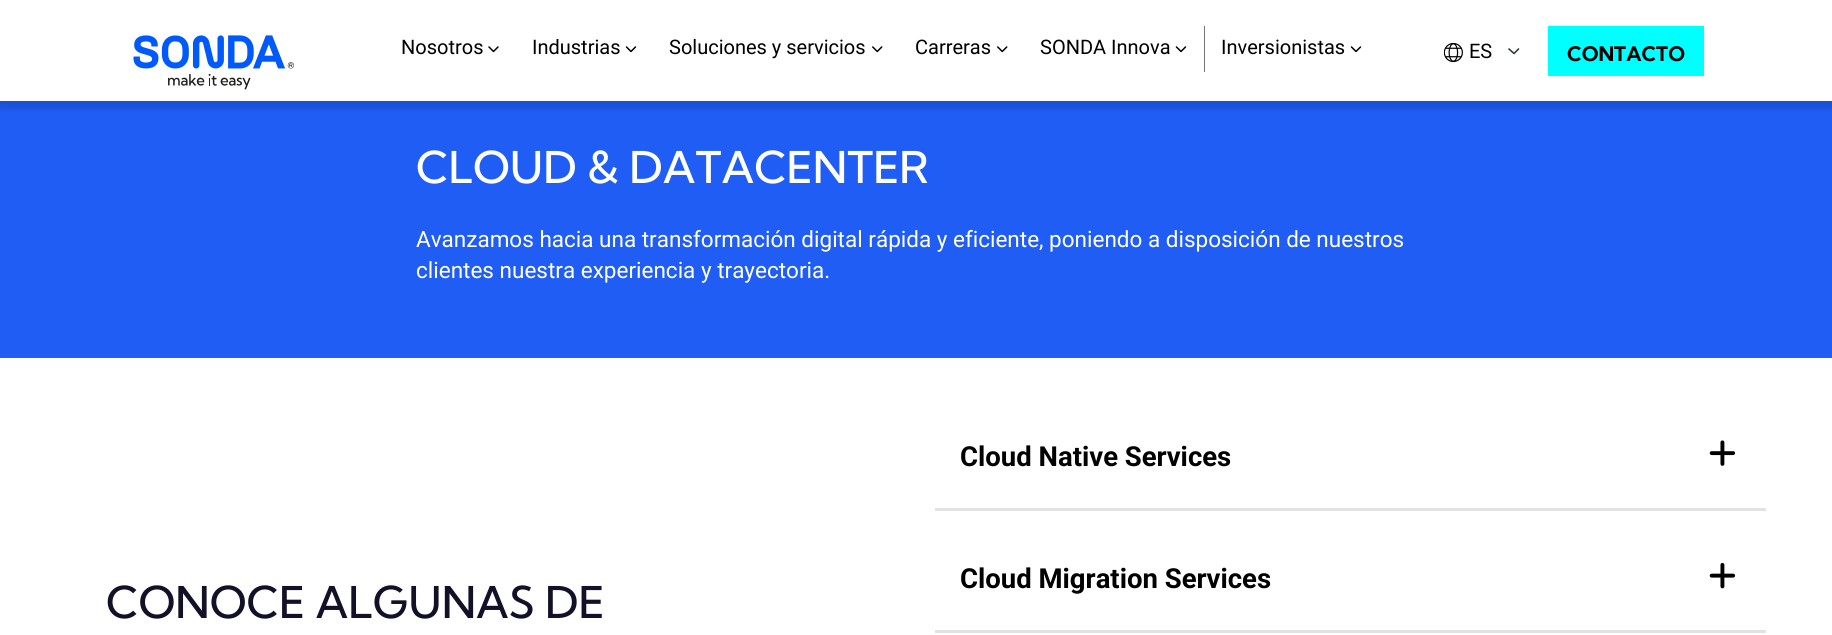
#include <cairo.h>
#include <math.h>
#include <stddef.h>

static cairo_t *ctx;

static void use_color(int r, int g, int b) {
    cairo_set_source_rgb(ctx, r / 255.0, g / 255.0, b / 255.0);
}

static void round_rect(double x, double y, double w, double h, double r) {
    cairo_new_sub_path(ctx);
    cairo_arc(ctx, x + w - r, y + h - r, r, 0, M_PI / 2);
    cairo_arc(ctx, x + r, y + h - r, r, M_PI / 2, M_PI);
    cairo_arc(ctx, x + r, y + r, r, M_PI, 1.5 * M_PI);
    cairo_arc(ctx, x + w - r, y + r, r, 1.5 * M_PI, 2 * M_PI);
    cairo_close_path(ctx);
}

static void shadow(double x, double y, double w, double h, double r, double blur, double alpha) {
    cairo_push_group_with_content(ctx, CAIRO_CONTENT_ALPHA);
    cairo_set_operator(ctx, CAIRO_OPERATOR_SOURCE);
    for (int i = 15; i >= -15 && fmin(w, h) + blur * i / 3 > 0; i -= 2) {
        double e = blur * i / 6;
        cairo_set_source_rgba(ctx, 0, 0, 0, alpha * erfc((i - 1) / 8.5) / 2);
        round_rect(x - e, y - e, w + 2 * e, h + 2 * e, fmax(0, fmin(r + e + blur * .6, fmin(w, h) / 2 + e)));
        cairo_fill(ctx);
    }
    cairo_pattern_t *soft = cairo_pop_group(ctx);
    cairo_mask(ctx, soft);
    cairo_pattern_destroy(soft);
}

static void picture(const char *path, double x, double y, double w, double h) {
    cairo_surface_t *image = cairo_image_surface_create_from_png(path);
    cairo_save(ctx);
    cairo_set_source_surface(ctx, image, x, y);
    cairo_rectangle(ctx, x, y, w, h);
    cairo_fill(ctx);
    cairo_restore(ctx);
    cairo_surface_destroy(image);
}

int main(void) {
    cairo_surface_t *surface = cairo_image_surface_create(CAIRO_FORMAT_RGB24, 1832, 635);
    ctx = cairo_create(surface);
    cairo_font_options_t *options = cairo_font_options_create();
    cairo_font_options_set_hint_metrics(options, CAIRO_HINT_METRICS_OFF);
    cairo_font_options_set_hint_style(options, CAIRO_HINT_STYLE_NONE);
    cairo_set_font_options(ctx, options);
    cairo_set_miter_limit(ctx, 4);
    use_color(255, 255, 255);
    cairo_paint(ctx);
    use_color(31, 93, 245);
    cairo_rectangle(ctx, 0, 101, 1832, 257);
    cairo_fill(ctx);
    cairo_save(ctx);
    cairo_rectangle(ctx, 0, 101, 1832, 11);
    cairo_clip(ctx);
    use_color(0, 0, 0);
    shadow(-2, 1, 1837, 107, 0, 4, 0.15);
    cairo_restore(ctx);
    picture("img1.png", 133, 35, 161, 55);
    cairo_select_font_face(ctx, "Roboto", CAIRO_FONT_SLANT_NORMAL, CAIRO_FONT_WEIGHT_NORMAL);
    cairo_set_font_size(ctx, 20);
    use_color(0, 0, 0);
    cairo_move_to(ctx, 401, 54);
    cairo_show_text(ctx, "Nosotros");
    picture("img2.png", 488, 46, 11, 7);
    cairo_move_to(ctx, 532, 54);
    cairo_show_text(ctx, "Industrias");
    picture("img3.png", 625, 46, 12, 7);
    cairo_move_to(ctx, 669, 54);
    cairo_show_text(ctx, "Soluciones y servicios");
    picture("img4.png", 872, 46, 11, 7);
    cairo_move_to(ctx, 915, 54);
    cairo_show_text(ctx, "Carreras");
    picture("img4.png", 997, 46, 11, 7);
    cairo_move_to(ctx, 1040, 54);
    cairo_show_text(ctx, "SONDA Innova");
    picture("img3.png", 1175, 46, 12, 7);
    use_color(116, 116, 116);
    cairo_rectangle(ctx, 1204, 26, 1, 46);
    cairo_fill(ctx);
    use_color(0, 0, 0);
    cairo_move_to(ctx, 1221, 54);
    cairo_show_text(ctx, "Inversionistas");
    picture("img3.png", 1350, 46, 12, 7);
    picture("img5.png", 1444, 43, 19, 20);
    cairo_new_path(ctx);
    cairo_move_to(ctx, 1509, 49);
    cairo_line_to(ctx, 1514, 53.5);
    cairo_line_to(ctx, 1518.5, 49);
    use_color(52, 58, 64);
    cairo_set_line_width(ctx, 1.6);
    cairo_set_line_cap(ctx, CAIRO_LINE_CAP_ROUND);
    cairo_set_line_join(ctx, CAIRO_LINE_JOIN_ROUND);
    cairo_stroke(ctx);
    use_color(0, 0, 0);
    cairo_move_to(ctx, 1469, 58);
    cairo_show_text(ctx, "ES");
    use_color(0, 255, 255);
    cairo_rectangle(ctx, 1548, 26, 156, 50);
    cairo_fill(ctx);
    cairo_select_font_face(ctx, "Kumbh Sans", CAIRO_FONT_SLANT_NORMAL, CAIRO_FONT_WEIGHT_BOLD);
    use_color(0, 0, 0);
    cairo_move_to(ctx, 1567, 61);
    cairo_show_text(ctx, "CONTACTO");
    cairo_select_font_face(ctx, "Kumbh Sans Medium", CAIRO_FONT_SLANT_NORMAL, CAIRO_FONT_WEIGHT_NORMAL);
    cairo_set_font_size(ctx, 43.75);
    use_color(255, 255, 255);
    cairo_move_to(ctx, 416, 183);
    cairo_show_text(ctx, "CLOUD & DATACENTER");
    cairo_select_font_face(ctx, "Roboto", CAIRO_FONT_SLANT_NORMAL, CAIRO_FONT_WEIGHT_NORMAL);
    cairo_set_font_size(ctx, 22.5);
    cairo_move_to(ctx, 416, 247);
    cairo_show_text(ctx, "Avanzamos hacia una transformación digital rápida y eficiente, poniendo a disposición de nuestros");
    cairo_move_to(ctx, 416, 278);
    cairo_show_text(ctx, "clientes nuestra experiencia y trayectoria.");
    use_color(226, 226, 226);
    cairo_rectangle(ctx, 935, 508, 831, 3);
    cairo_fill(ctx);
    cairo_select_font_face(ctx, "Roboto", CAIRO_FONT_SLANT_NORMAL, CAIRO_FONT_WEIGHT_BOLD);
    cairo_set_font_size(ctx, 27.5);
    use_color(0, 0, 0);
    cairo_move_to(ctx, 960, 466);
    cairo_show_text(ctx, "Cloud Native Services");
    picture("img6.png", 1709, 440, 27, 26);
    use_color(226, 226, 226);
    cairo_rectangle(ctx, 935, 630, 831, 3);
    cairo_fill(ctx);
    use_color(0, 0, 0);
    cairo_move_to(ctx, 960, 588);
    cairo_show_text(ctx, "Cloud Migration Services");
    picture("img7.png", 1709, 562, 27, 27);
    cairo_select_font_face(ctx, "Kumbh Sans Medium", CAIRO_FONT_SLANT_NORMAL, CAIRO_FONT_WEIGHT_NORMAL);
    cairo_set_font_size(ctx, 43.75);
    use_color(18, 17, 39);
    cairo_move_to(ctx, 106, 618);
    cairo_show_text(ctx, "CONOCE ALGUNAS DE");
    cairo_surface_write_to_png(surface, "result.png");
    cairo_font_options_destroy(options);
    cairo_destroy(ctx);
    cairo_surface_destroy(surface);
    return 0;
}
